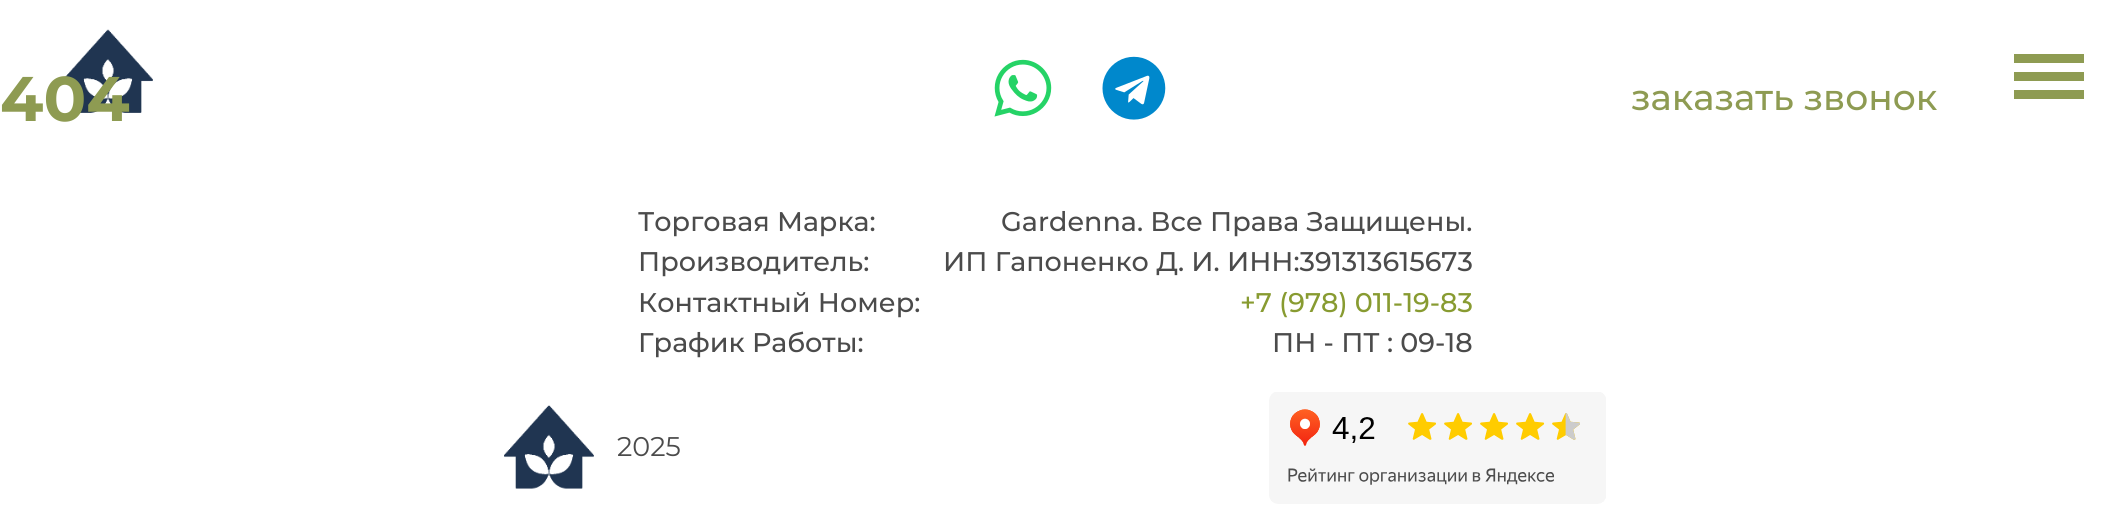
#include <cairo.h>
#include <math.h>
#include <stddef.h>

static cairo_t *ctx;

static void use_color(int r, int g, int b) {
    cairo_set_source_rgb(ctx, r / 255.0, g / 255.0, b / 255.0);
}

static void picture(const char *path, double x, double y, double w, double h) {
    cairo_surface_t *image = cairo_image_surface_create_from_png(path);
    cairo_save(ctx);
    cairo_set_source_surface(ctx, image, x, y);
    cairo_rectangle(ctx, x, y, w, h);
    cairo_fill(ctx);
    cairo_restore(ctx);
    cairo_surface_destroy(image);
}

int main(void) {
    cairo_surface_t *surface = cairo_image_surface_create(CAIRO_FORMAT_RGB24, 2109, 508);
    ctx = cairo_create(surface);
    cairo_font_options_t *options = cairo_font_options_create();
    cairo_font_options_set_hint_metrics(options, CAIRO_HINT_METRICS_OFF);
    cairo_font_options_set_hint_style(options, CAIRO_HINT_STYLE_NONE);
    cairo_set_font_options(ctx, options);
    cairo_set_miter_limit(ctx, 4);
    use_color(255, 255, 255);
    cairo_paint(ctx);
    picture("img1.png", 63, 29, 90, 84);
    cairo_select_font_face(ctx, "Montserrat", CAIRO_FONT_SLANT_NORMAL, CAIRO_FONT_WEIGHT_BOLD);
    cairo_set_font_size(ctx, 63);
    use_color(142, 155, 82);
    cairo_move_to(ctx, 0, 121);
    cairo_show_text(ctx, "404");
    picture("img2.png", 994, 59, 58, 58);
    picture("img3.png", 1102, 56, 64, 64);
    cairo_select_font_face(ctx, "Montserrat Medium", CAIRO_FONT_SLANT_NORMAL, CAIRO_FONT_WEIGHT_NORMAL);
    cairo_set_font_size(ctx, 36);
    cairo_move_to(ctx, 1631, 110);
    cairo_show_text(ctx, "заказать звонок");
    cairo_rectangle(ctx, 2014, 72, 70, 9);
    cairo_fill(ctx);
    cairo_rectangle(ctx, 2014, 54, 70, 9);
    cairo_fill(ctx);
    cairo_rectangle(ctx, 2014, 90, 70, 9);
    cairo_fill(ctx);
    cairo_set_font_size(ctx, 27);
    use_color(75, 75, 75);
    cairo_move_to(ctx, 638, 231);
    cairo_show_text(ctx, "Торговая Марка:");
    cairo_move_to(ctx, 638, 271);
    cairo_show_text(ctx, "Производитель:");
    cairo_move_to(ctx, 638, 312);
    cairo_show_text(ctx, "Контактный Номер:");
    cairo_move_to(ctx, 638, 352);
    cairo_show_text(ctx, "График Работы:");
    cairo_move_to(ctx, 1001, 231);
    cairo_show_text(ctx, "Gardenna. Все Права Защищены.");
    cairo_move_to(ctx, 943, 271);
    cairo_show_text(ctx, "ИП Гапоненко Д. И. ИНН:391313615673");
    use_color(136, 155, 49);
    cairo_move_to(ctx, 1240, 312);
    cairo_show_text(ctx, "+7 (978) 011-19-83");
    use_color(75, 75, 75);
    cairo_move_to(ctx, 1272, 352);
    cairo_show_text(ctx, "ПН - ПТ : 09-18");
    picture("img4.png", 504, 405, 90, 84);
    cairo_select_font_face(ctx, "Montserrat", CAIRO_FONT_SLANT_NORMAL, CAIRO_FONT_WEIGHT_NORMAL);
    cairo_move_to(ctx, 617, 456);
    cairo_show_text(ctx, "2025");
    picture("img5.png", 1269, 392, 337, 112);
    cairo_surface_write_to_png(surface, "result.png");
    cairo_font_options_destroy(options);
    cairo_destroy(ctx);
    cairo_surface_destroy(surface);
    return 0;
}
